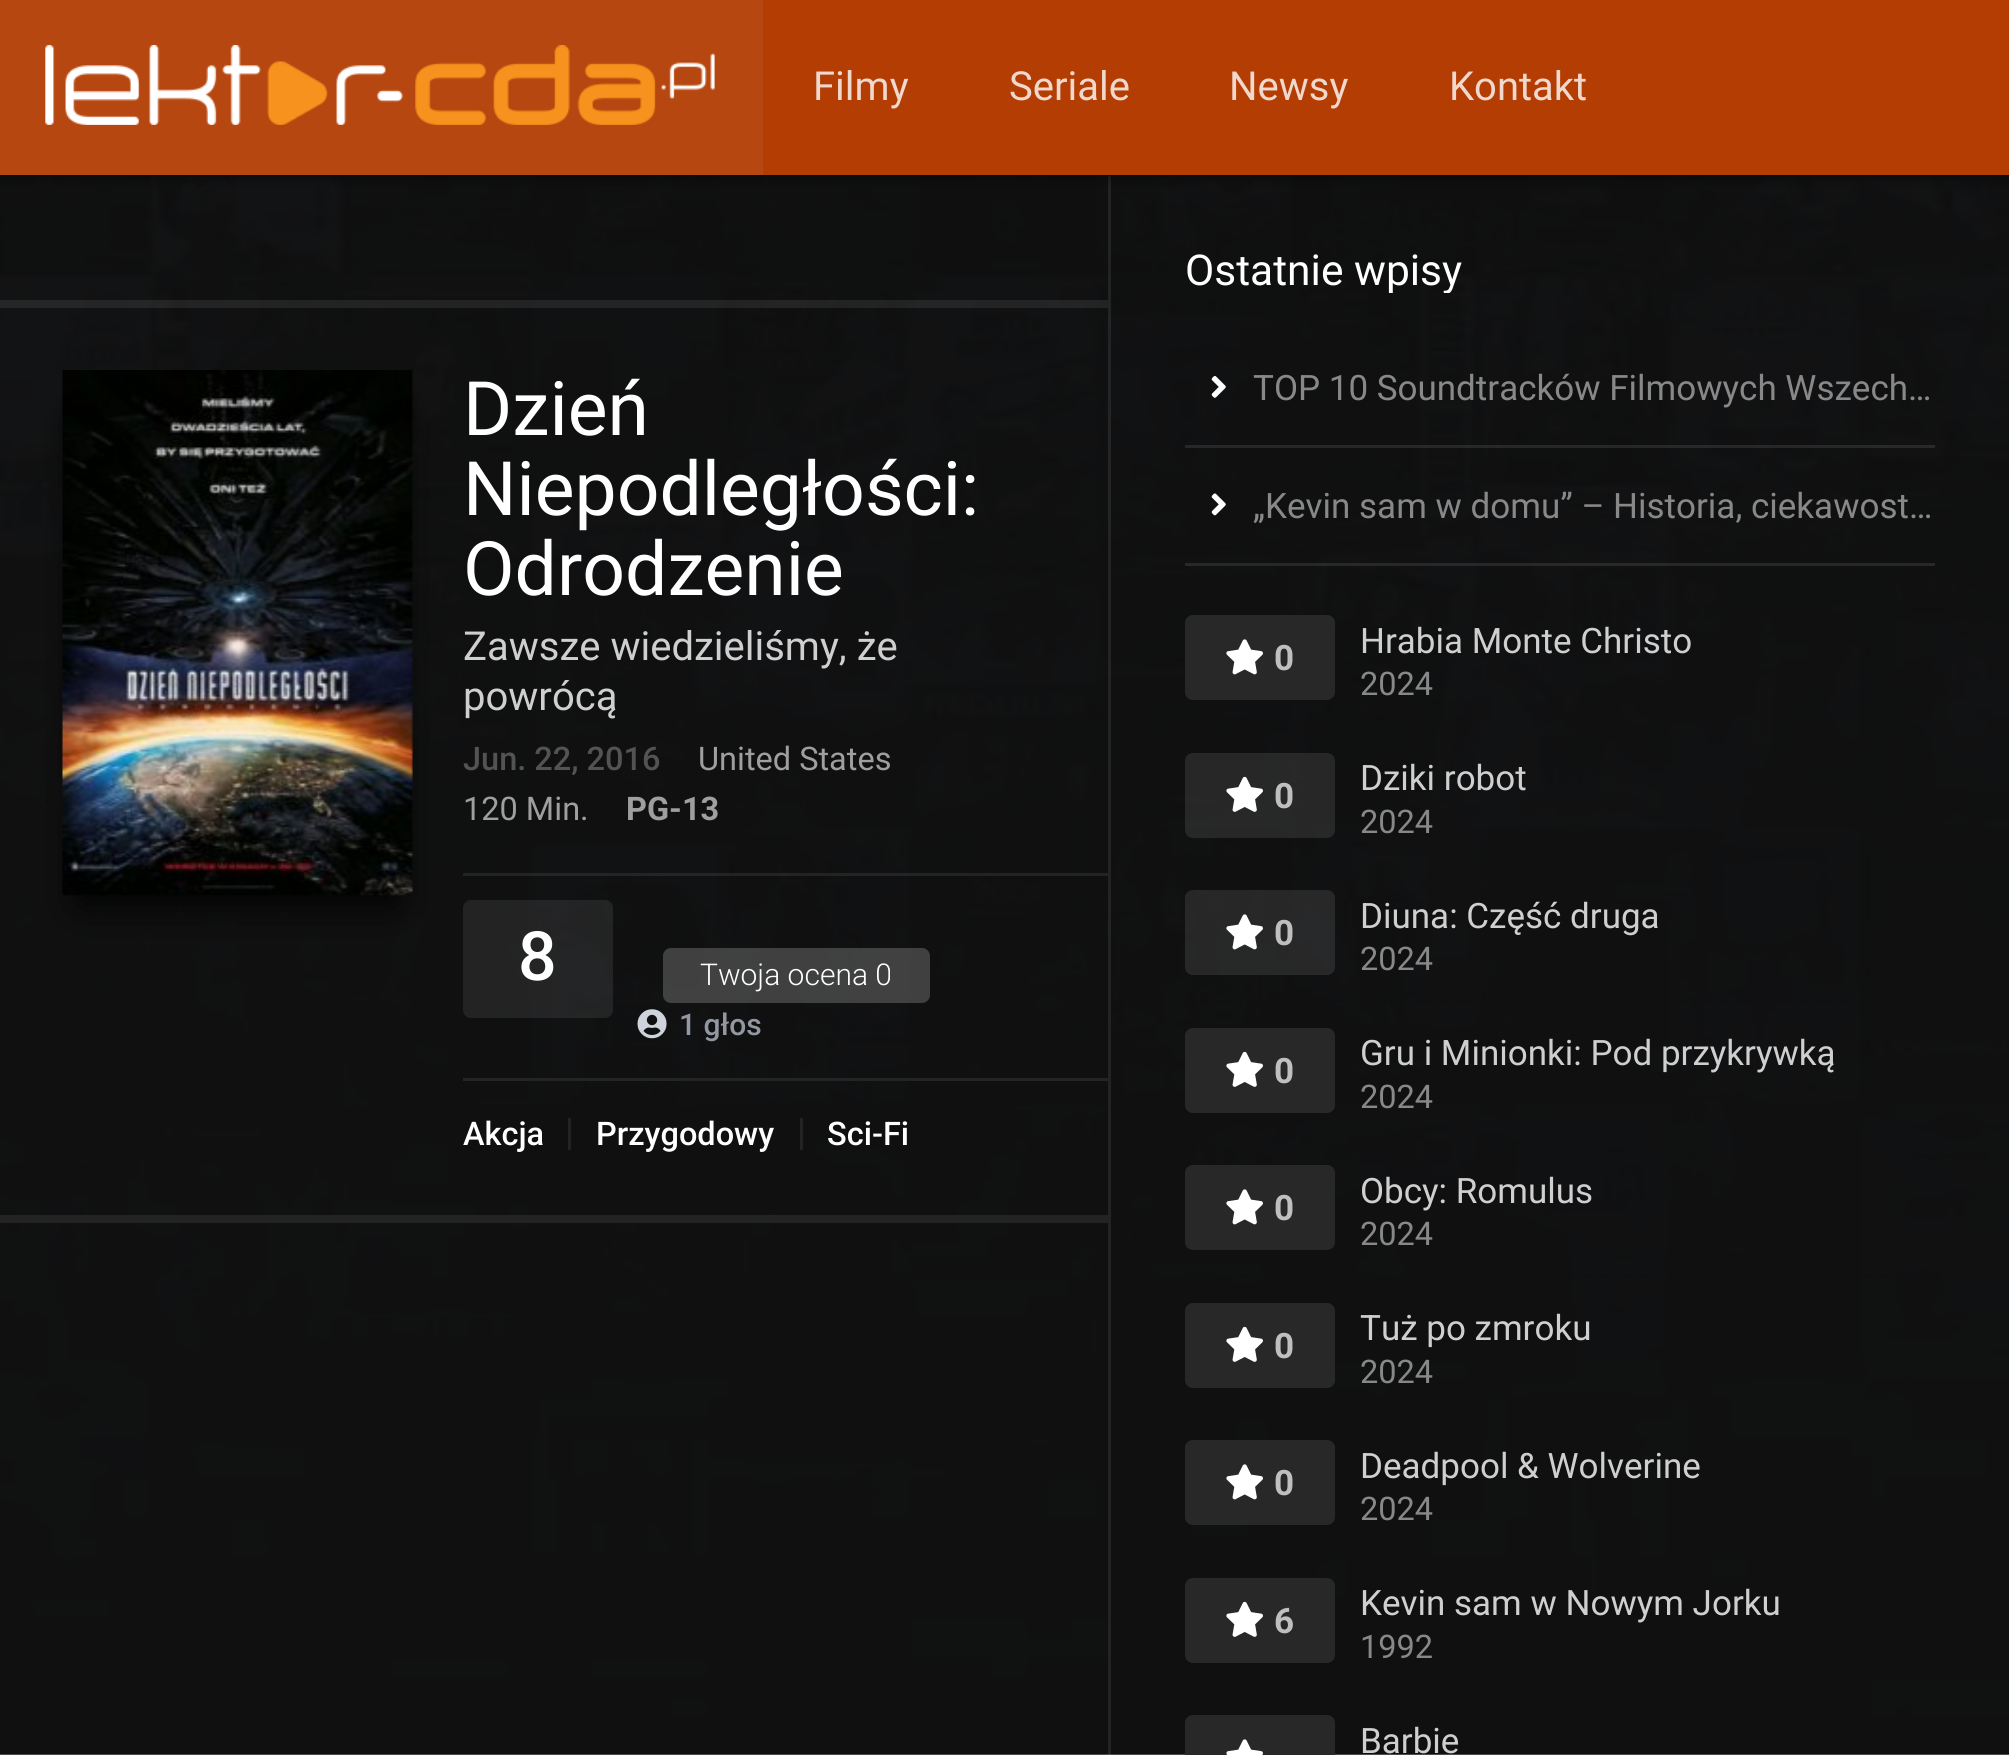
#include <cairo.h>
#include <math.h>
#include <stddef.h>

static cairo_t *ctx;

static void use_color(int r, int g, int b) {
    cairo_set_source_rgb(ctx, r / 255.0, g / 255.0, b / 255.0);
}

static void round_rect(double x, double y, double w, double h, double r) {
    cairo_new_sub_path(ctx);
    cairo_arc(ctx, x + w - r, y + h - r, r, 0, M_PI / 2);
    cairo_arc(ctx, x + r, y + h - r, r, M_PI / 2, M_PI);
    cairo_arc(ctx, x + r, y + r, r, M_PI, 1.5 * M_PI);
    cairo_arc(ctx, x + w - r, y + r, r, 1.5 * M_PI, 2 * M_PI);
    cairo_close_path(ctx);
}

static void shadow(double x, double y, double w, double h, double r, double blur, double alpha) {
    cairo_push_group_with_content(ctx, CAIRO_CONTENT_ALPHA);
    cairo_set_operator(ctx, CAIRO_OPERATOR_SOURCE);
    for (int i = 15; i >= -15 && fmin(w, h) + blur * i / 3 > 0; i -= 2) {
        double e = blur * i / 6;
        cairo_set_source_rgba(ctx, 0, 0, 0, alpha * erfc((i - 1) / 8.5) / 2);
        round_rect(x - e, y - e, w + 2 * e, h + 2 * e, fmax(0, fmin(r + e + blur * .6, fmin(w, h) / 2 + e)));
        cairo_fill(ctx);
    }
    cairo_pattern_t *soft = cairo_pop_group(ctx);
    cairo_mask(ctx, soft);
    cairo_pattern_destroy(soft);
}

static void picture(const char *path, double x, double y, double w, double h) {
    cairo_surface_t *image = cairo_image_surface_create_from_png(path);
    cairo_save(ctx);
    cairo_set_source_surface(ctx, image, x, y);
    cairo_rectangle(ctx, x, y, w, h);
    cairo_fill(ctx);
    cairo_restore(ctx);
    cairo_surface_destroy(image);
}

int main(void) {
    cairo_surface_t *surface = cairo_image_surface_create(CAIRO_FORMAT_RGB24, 2009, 1755);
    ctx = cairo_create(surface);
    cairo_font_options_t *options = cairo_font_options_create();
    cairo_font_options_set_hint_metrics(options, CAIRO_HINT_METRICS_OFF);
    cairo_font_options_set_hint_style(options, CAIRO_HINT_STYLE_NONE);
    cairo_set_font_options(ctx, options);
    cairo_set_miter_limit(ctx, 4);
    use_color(255, 255, 255);
    cairo_paint(ctx);
    picture("img1.png", 0, 176, 2009, 1579);
    cairo_set_source_rgba(ctx, 1, 1, 1, 0.08);
    cairo_rectangle(ctx, 1108, 175, 3, 1580);
    cairo_fill(ctx);
    use_color(0, 0, 0);
    shadow(0, 3, 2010, 175, 0, 6, 0.4);
    use_color(0, 0, 0);
    cairo_rectangle(ctx, 0, 175, 2009, 1);
    cairo_fill(ctx);
    use_color(179, 61, 3);
    cairo_rectangle(ctx, 763, 0, 1246, 175);
    cairo_fill(ctx);
    use_color(183, 71, 16);
    cairo_rectangle(ctx, 0, 0, 763, 175);
    cairo_fill(ctx);
    picture("img2.png", 45, 45, 670, 80);
    cairo_select_font_face(ctx, "Roboto", CAIRO_FONT_SLANT_NORMAL, CAIRO_FONT_WEIGHT_NORMAL);
    cairo_set_font_size(ctx, 40);
    use_color(240, 216, 205);
    cairo_move_to(ctx, 813, 100);
    cairo_show_text(ctx, "Filmy");
    cairo_move_to(ctx, 1009, 100);
    cairo_show_text(ctx, "Seriale");
    cairo_move_to(ctx, 1229, 100);
    cairo_show_text(ctx, "Newsy");
    cairo_move_to(ctx, 1449, 100);
    cairo_show_text(ctx, "Kontakt");
    cairo_set_source_rgba(ctx, 1, 1, 1, 0.08);
    cairo_rectangle(ctx, 0, 300, 1108, 8);
    cairo_fill(ctx);
    use_color(35, 35, 36);
    cairo_rectangle(ctx, 0, 1215, 1108, 8);
    cairo_fill(ctx);
    use_color(0, 0, 0);
    shadow(80, 413, 315, 490, 0, 19, 1);
    picture("img3.png", 62, 370, 351, 526);
    cairo_set_font_size(ctx, 75);
    use_color(255, 255, 255);
    cairo_move_to(ctx, 463, 435);
    cairo_show_text(ctx, "Dzień");
    cairo_move_to(ctx, 463, 515);
    cairo_show_text(ctx, "Niepodległości:");
    cairo_move_to(ctx, 463, 595);
    cairo_show_text(ctx, "Odrodzenie");
    cairo_set_font_size(ctx, 40);
    use_color(207, 207, 207);
    cairo_move_to(ctx, 463, 660);
    cairo_show_text(ctx, "Zawsze wiedzieliśmy, że");
    cairo_move_to(ctx, 463, 710);
    cairo_show_text(ctx, "powrócą");
    cairo_select_font_face(ctx, "Roboto Medium", CAIRO_FONT_SLANT_NORMAL, CAIRO_FONT_WEIGHT_NORMAL);
    cairo_set_font_size(ctx, 32.5);
    use_color(83, 83, 83);
    cairo_move_to(ctx, 463, 770);
    cairo_show_text(ctx, "Jun. 22, 2016");
    cairo_select_font_face(ctx, "Roboto", CAIRO_FONT_SLANT_NORMAL, CAIRO_FONT_WEIGHT_NORMAL);
    use_color(159, 159, 160);
    cairo_move_to(ctx, 698, 770);
    cairo_show_text(ctx, "United States");
    cairo_move_to(ctx, 463, 820);
    cairo_show_text(ctx, "120 Min.");
    cairo_select_font_face(ctx, "Roboto", CAIRO_FONT_SLANT_NORMAL, CAIRO_FONT_WEIGHT_BOLD);
    cairo_move_to(ctx, 626, 820);
    cairo_show_text(ctx, "PG-13");
    cairo_set_source_rgba(ctx, 1, 1, 1, 0.08);
    cairo_rectangle(ctx, 463, 873, 645, 3);
    cairo_fill(ctx);
    use_color(35, 36, 36);
    cairo_rectangle(ctx, 463, 1078, 645, 3);
    cairo_fill(ctx);
    cairo_set_source_rgba(ctx, 1, 1, 1, 0.08);
    round_rect(463, 900, 150, 118, 8);
    cairo_fill(ctx);
    cairo_select_font_face(ctx, "Roboto Medium", CAIRO_FONT_SLANT_NORMAL, CAIRO_FONT_WEIGHT_NORMAL);
    cairo_set_font_size(ctx, 68);
    use_color(255, 255, 255);
    cairo_move_to(ctx, 518, 980);
    cairo_show_text(ctx, "8");
    picture("img4.png", 637, 1009, 30, 30);
    cairo_set_font_size(ctx, 30);
    use_color(146, 151, 162);
    cairo_move_to(ctx, 679, 1035);
    cairo_show_text(ctx, "1 głos");
    cairo_set_source_rgba(ctx, 1, 1, 1, 0.2);
    round_rect(663, 948, 267, 55, 8);
    cairo_fill(ctx);
    cairo_select_font_face(ctx, "Roboto Light", CAIRO_FONT_SLANT_NORMAL, CAIRO_FONT_WEIGHT_NORMAL);
    use_color(255, 255, 255);
    cairo_move_to(ctx, 700, 985);
    cairo_show_text(ctx, "Twoja ocena 0");
    cairo_select_font_face(ctx, "Roboto Medium", CAIRO_FONT_SLANT_NORMAL, CAIRO_FONT_WEIGHT_NORMAL);
    cairo_set_font_size(ctx, 32.5);
    cairo_move_to(ctx, 463, 1145);
    cairo_show_text(ctx, "Akcja");
    use_color(35, 35, 36);
    cairo_rectangle(ctx, 568, 1118, 3, 32);
    cairo_fill(ctx);
    use_color(255, 255, 255);
    cairo_move_to(ctx, 596, 1145);
    cairo_show_text(ctx, "Przygodowy");
    use_color(35, 35, 36);
    cairo_rectangle(ctx, 800, 1118, 3, 32);
    cairo_fill(ctx);
    use_color(255, 255, 255);
    cairo_move_to(ctx, 827, 1145);
    cairo_show_text(ctx, "Sci-Fi");
    cairo_save(ctx);
    cairo_rectangle(ctx, 1185, 250, 750, 43);
    cairo_clip(ctx);
    cairo_select_font_face(ctx, "Roboto", CAIRO_FONT_SLANT_NORMAL, CAIRO_FONT_WEIGHT_NORMAL);
    cairo_set_font_size(ctx, 42.5);
    cairo_move_to(ctx, 1185, 285);
    cairo_show_text(ctx, "Ostatnie wpisy");
    cairo_restore(ctx);
    cairo_set_source_rgba(ctx, 1, 1, 1, 0.1);
    cairo_rectangle(ctx, 1185, 445, 750, 3);
    cairo_fill(ctx);
    picture("img5.png", 1211, 376, 15, 22);
    cairo_select_font_face(ctx, "Roboto", CAIRO_FONT_SLANT_NORMAL, CAIRO_FONT_WEIGHT_NORMAL);
    cairo_set_font_size(ctx, 35);
    use_color(136, 136, 136);
    cairo_move_to(ctx, 1253, 400);
    cairo_show_text(ctx, "TOP 10 Soundtracków Filmowych Wszech…");
    cairo_set_source_rgba(ctx, 1, 1, 1, 0.1);
    cairo_rectangle(ctx, 1185, 563, 750, 3);
    cairo_fill(ctx);
    picture("img6.png", 1211, 493, 15, 23);
    use_color(136, 136, 136);
    cairo_move_to(ctx, 1253, 518);
    cairo_show_text(ctx, "„Kevin sam w domu” – Historia, ciekawost…");
    use_color(40, 40, 41);
    round_rect(1185, 615, 150, 85, 8);
    cairo_fill(ctx);
    picture("img7.png", 1226, 639, 37, 36);
    cairo_select_font_face(ctx, "Roboto", CAIRO_FONT_SLANT_NORMAL, CAIRO_FONT_WEIGHT_BOLD);
    use_color(191, 191, 191);
    cairo_move_to(ctx, 1274, 670);
    cairo_show_text(ctx, "0");
    cairo_select_font_face(ctx, "Roboto", CAIRO_FONT_SLANT_NORMAL, CAIRO_FONT_WEIGHT_NORMAL);
    use_color(207, 207, 207);
    cairo_move_to(ctx, 1360, 653);
    cairo_show_text(ctx, "Hrabia Monte Christo");
    cairo_set_font_size(ctx, 32.5);
    use_color(136, 136, 136);
    cairo_move_to(ctx, 1360, 695);
    cairo_show_text(ctx, "2024");
    cairo_set_source_rgba(ctx, 1, 1, 1, 0.1);
    round_rect(1185, 753, 150, 85, 8);
    cairo_fill(ctx);
    picture("img8.png", 1226, 776, 37, 36);
    cairo_select_font_face(ctx, "Roboto", CAIRO_FONT_SLANT_NORMAL, CAIRO_FONT_WEIGHT_BOLD);
    cairo_set_font_size(ctx, 35);
    use_color(191, 191, 191);
    cairo_move_to(ctx, 1274, 808);
    cairo_show_text(ctx, "0");
    cairo_select_font_face(ctx, "Roboto", CAIRO_FONT_SLANT_NORMAL, CAIRO_FONT_WEIGHT_NORMAL);
    use_color(207, 207, 207);
    cairo_move_to(ctx, 1360, 790);
    cairo_show_text(ctx, "Dziki robot");
    cairo_set_font_size(ctx, 32.5);
    use_color(136, 136, 136);
    cairo_move_to(ctx, 1360, 833);
    cairo_show_text(ctx, "2024");
    cairo_new_path(ctx);
    cairo_move_to(ctx, 1185, 1001);
    cairo_line_to(ctx, 1935, 1001);
    use_color(15, 15, 15);
    cairo_set_line_width(ctx, 2.5);
    cairo_set_dash(ctx, (double[]){2.5, 2.5}, 2, 0);
    cairo_stroke(ctx);
    cairo_set_source_rgba(ctx, 1, 1, 1, 0.1);
    round_rect(1185, 890, 150, 85, 8);
    cairo_fill(ctx);
    picture("img9.png", 1226, 914, 37, 36);
    cairo_select_font_face(ctx, "Roboto", CAIRO_FONT_SLANT_NORMAL, CAIRO_FONT_WEIGHT_BOLD);
    cairo_set_font_size(ctx, 35);
    use_color(191, 191, 191);
    cairo_move_to(ctx, 1274, 945);
    cairo_show_text(ctx, "0");
    cairo_select_font_face(ctx, "Roboto", CAIRO_FONT_SLANT_NORMAL, CAIRO_FONT_WEIGHT_NORMAL);
    use_color(207, 207, 207);
    cairo_move_to(ctx, 1360, 928);
    cairo_show_text(ctx, "Diuna: Część druga");
    cairo_set_font_size(ctx, 32.5);
    use_color(136, 136, 136);
    cairo_move_to(ctx, 1360, 970);
    cairo_show_text(ctx, "2024");
    use_color(40, 40, 41);
    round_rect(1185, 1028, 150, 85, 8);
    cairo_fill(ctx);
    picture("img10.png", 1226, 1051, 37, 36);
    cairo_select_font_face(ctx, "Roboto", CAIRO_FONT_SLANT_NORMAL, CAIRO_FONT_WEIGHT_BOLD);
    cairo_set_font_size(ctx, 35);
    use_color(191, 191, 191);
    cairo_move_to(ctx, 1274, 1083);
    cairo_show_text(ctx, "0");
    cairo_select_font_face(ctx, "Roboto", CAIRO_FONT_SLANT_NORMAL, CAIRO_FONT_WEIGHT_NORMAL);
    use_color(207, 207, 207);
    cairo_move_to(ctx, 1360, 1065);
    cairo_show_text(ctx, "Gru i Minionki: Pod przykrywką");
    cairo_set_font_size(ctx, 32.5);
    use_color(136, 136, 136);
    cairo_move_to(ctx, 1360, 1108);
    cairo_show_text(ctx, "2024");
    cairo_new_path(ctx);
    cairo_move_to(ctx, 1185, 1276);
    cairo_line_to(ctx, 1935, 1276);
    use_color(15, 15, 15);
    cairo_stroke(ctx);
    use_color(40, 40, 41);
    round_rect(1185, 1165, 150, 85, 8);
    cairo_fill(ctx);
    picture("img7.png", 1226, 1189, 37, 36);
    cairo_select_font_face(ctx, "Roboto", CAIRO_FONT_SLANT_NORMAL, CAIRO_FONT_WEIGHT_BOLD);
    cairo_set_font_size(ctx, 35);
    use_color(191, 191, 191);
    cairo_move_to(ctx, 1274, 1220);
    cairo_show_text(ctx, "0");
    cairo_select_font_face(ctx, "Roboto", CAIRO_FONT_SLANT_NORMAL, CAIRO_FONT_WEIGHT_NORMAL);
    use_color(207, 207, 207);
    cairo_move_to(ctx, 1360, 1203);
    cairo_show_text(ctx, "Obcy: Romulus");
    cairo_set_font_size(ctx, 32.5);
    use_color(136, 136, 136);
    cairo_move_to(ctx, 1360, 1245);
    cairo_show_text(ctx, "2024");
    use_color(40, 40, 41);
    round_rect(1185, 1303, 150, 85, 8);
    cairo_fill(ctx);
    picture("img10.png", 1226, 1326, 37, 36);
    cairo_select_font_face(ctx, "Roboto", CAIRO_FONT_SLANT_NORMAL, CAIRO_FONT_WEIGHT_BOLD);
    cairo_set_font_size(ctx, 35);
    use_color(191, 191, 191);
    cairo_move_to(ctx, 1274, 1358);
    cairo_show_text(ctx, "0");
    cairo_select_font_face(ctx, "Roboto", CAIRO_FONT_SLANT_NORMAL, CAIRO_FONT_WEIGHT_NORMAL);
    use_color(207, 207, 207);
    cairo_move_to(ctx, 1360, 1340);
    cairo_show_text(ctx, "Tuż po zmroku");
    cairo_set_font_size(ctx, 32.5);
    use_color(136, 136, 136);
    cairo_move_to(ctx, 1360, 1383);
    cairo_show_text(ctx, "2024");
    use_color(40, 40, 41);
    round_rect(1185, 1440, 150, 85, 8);
    cairo_fill(ctx);
    picture("img7.png", 1226, 1464, 37, 36);
    cairo_select_font_face(ctx, "Roboto", CAIRO_FONT_SLANT_NORMAL, CAIRO_FONT_WEIGHT_BOLD);
    cairo_set_font_size(ctx, 35);
    use_color(191, 191, 191);
    cairo_move_to(ctx, 1274, 1495);
    cairo_show_text(ctx, "0");
    cairo_select_font_face(ctx, "Roboto", CAIRO_FONT_SLANT_NORMAL, CAIRO_FONT_WEIGHT_NORMAL);
    use_color(207, 207, 207);
    cairo_move_to(ctx, 1360, 1478);
    cairo_show_text(ctx, "Deadpool & Wolverine");
    cairo_set_font_size(ctx, 32.5);
    use_color(136, 136, 136);
    cairo_move_to(ctx, 1360, 1520);
    cairo_show_text(ctx, "2024");
    use_color(40, 40, 41);
    round_rect(1185, 1578, 150, 85, 8);
    cairo_fill(ctx);
    picture("img10.png", 1226, 1601, 37, 36);
    cairo_select_font_face(ctx, "Roboto", CAIRO_FONT_SLANT_NORMAL, CAIRO_FONT_WEIGHT_BOLD);
    cairo_set_font_size(ctx, 35);
    use_color(191, 191, 191);
    cairo_move_to(ctx, 1274, 1633);
    cairo_show_text(ctx, "6");
    cairo_select_font_face(ctx, "Roboto", CAIRO_FONT_SLANT_NORMAL, CAIRO_FONT_WEIGHT_NORMAL);
    use_color(207, 207, 207);
    cairo_move_to(ctx, 1360, 1615);
    cairo_show_text(ctx, "Kevin sam w Nowym Jorku");
    cairo_set_font_size(ctx, 32.5);
    use_color(136, 136, 136);
    cairo_move_to(ctx, 1360, 1658);
    cairo_show_text(ctx, "1992");
    use_color(40, 40, 41);
    round_rect(1185, 1715, 150, 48, 8);
    cairo_fill(ctx);
    picture("img11.png", 1226, 1739, 37, 16);
    cairo_set_font_size(ctx, 35);
    use_color(207, 207, 207);
    cairo_move_to(ctx, 1360, 1753);
    cairo_show_text(ctx, "Barbie");
    cairo_surface_write_to_png(surface, "result.png");
    cairo_font_options_destroy(options);
    cairo_destroy(ctx);
    cairo_surface_destroy(surface);
    return 0;
}
